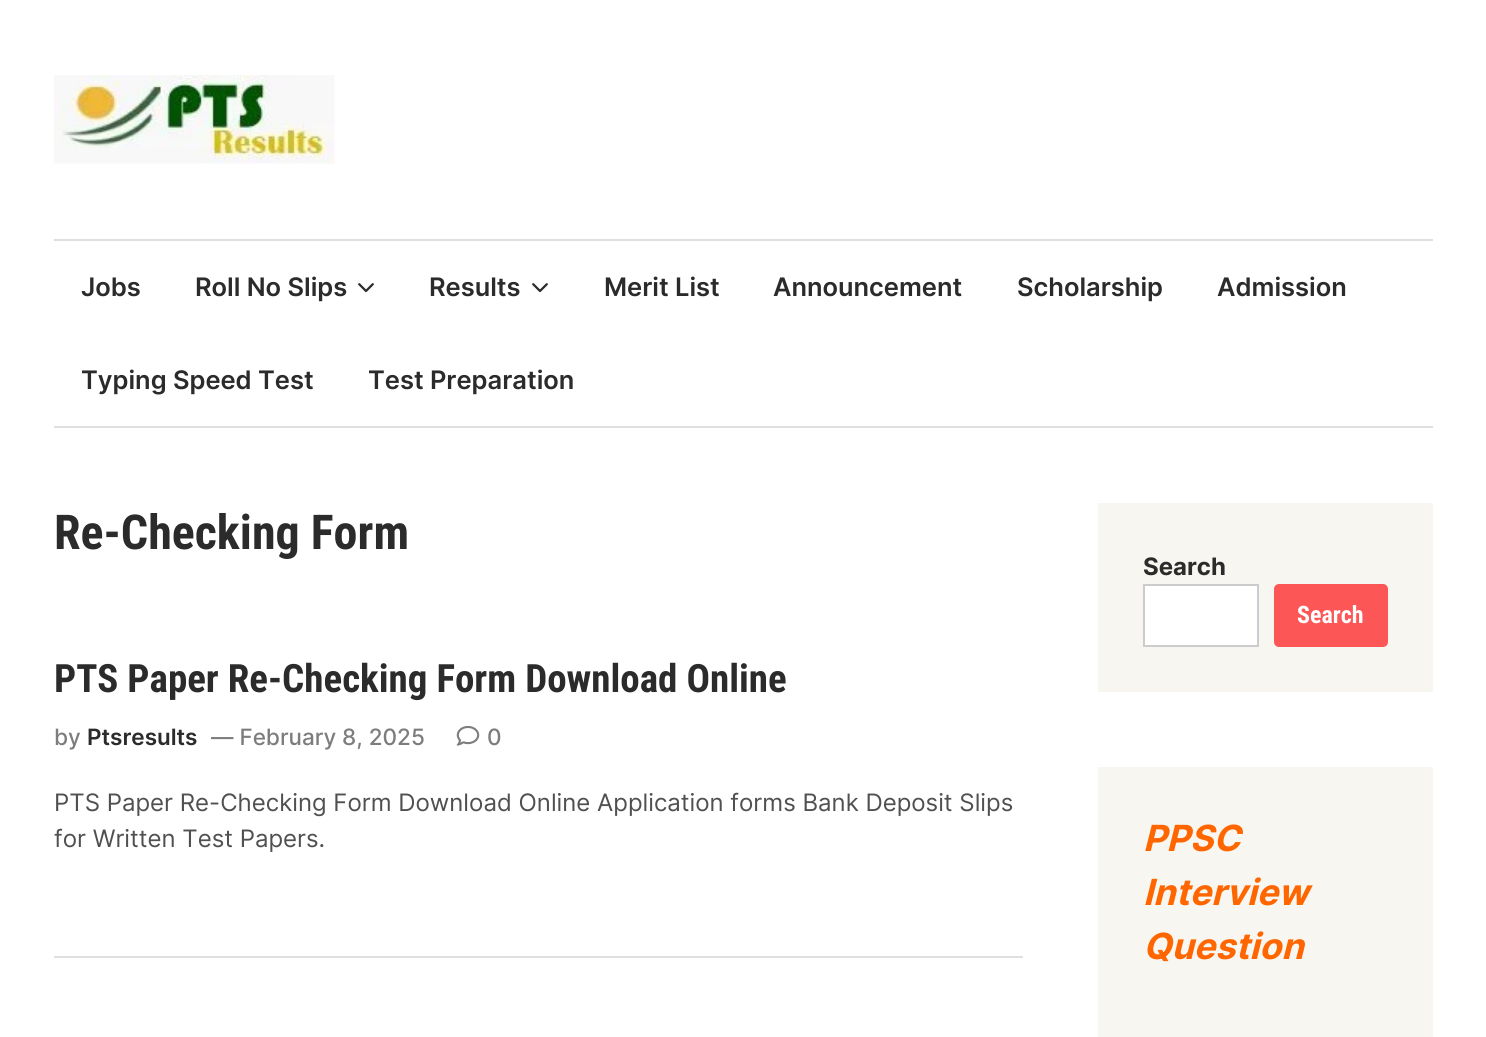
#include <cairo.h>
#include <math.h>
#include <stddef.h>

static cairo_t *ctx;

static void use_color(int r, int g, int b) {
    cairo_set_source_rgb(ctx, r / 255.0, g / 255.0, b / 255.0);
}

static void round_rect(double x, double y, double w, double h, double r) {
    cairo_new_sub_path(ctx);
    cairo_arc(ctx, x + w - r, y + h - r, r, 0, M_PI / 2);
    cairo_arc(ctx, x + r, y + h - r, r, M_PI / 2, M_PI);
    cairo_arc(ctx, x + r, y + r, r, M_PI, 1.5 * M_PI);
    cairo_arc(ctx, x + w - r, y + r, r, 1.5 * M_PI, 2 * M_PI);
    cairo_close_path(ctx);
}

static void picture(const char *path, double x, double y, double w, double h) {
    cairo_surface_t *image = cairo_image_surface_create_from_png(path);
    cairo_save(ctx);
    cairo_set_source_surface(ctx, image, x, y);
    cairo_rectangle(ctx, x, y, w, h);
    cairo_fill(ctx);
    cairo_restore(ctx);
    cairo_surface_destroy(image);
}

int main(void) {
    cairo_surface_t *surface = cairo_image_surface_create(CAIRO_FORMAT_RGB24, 1486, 1037);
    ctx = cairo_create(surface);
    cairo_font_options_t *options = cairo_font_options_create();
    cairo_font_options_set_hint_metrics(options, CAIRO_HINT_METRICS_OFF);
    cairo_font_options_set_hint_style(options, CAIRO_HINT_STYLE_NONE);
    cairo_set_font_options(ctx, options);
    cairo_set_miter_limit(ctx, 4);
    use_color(255, 255, 255);
    cairo_paint(ctx);
    picture("img1.png", 54, 75, 281, 89);
    use_color(224, 224, 224);
    cairo_rectangle(ctx, 54, 239, 1379, 2);
    cairo_fill(ctx);
    cairo_rectangle(ctx, 54, 426, 1379, 2);
    cairo_fill(ctx);
    cairo_select_font_face(ctx, "Inter SemiBold", CAIRO_FONT_SLANT_NORMAL, CAIRO_FONT_WEIGHT_NORMAL);
    cairo_set_font_size(ctx, 25.5);
    use_color(44, 43, 43);
    cairo_move_to(ctx, 81, 296);
    cairo_show_text(ctx, "Jobs");
    cairo_move_to(ctx, 195, 296);
    cairo_show_text(ctx, "Roll No Slips");
    picture("img2.png", 358, 283, 16, 10);
    cairo_move_to(ctx, 429, 296);
    cairo_show_text(ctx, "Results");
    picture("img2.png", 532, 283, 16, 10);
    cairo_move_to(ctx, 604, 296);
    cairo_show_text(ctx, "Merit List");
    cairo_move_to(ctx, 773, 296);
    cairo_show_text(ctx, "Announcement");
    cairo_move_to(ctx, 1017, 296);
    cairo_show_text(ctx, "Scholarship");
    cairo_move_to(ctx, 1217, 296);
    cairo_show_text(ctx, "Admission");
    cairo_move_to(ctx, 81, 389);
    cairo_show_text(ctx, "Typing Speed Test");
    cairo_move_to(ctx, 368, 389);
    cairo_show_text(ctx, "Test Preparation");
    cairo_select_font_face(ctx, "Roboto Condensed", CAIRO_FONT_SLANT_NORMAL, CAIRO_FONT_WEIGHT_BOLD);
    cairo_set_font_size(ctx, 48);
    cairo_move_to(ctx, 54, 549);
    cairo_show_text(ctx, "Re-Checking Form");
    use_color(224, 224, 224);
    cairo_rectangle(ctx, 54, 956, 969, 2);
    cairo_fill(ctx);
    cairo_set_font_size(ctx, 39);
    use_color(44, 43, 43);
    cairo_move_to(ctx, 54, 692);
    cairo_show_text(ctx, "PTS Paper Re-Checking Form Download Online");
    cairo_select_font_face(ctx, "Inter Medium", CAIRO_FONT_SLANT_NORMAL, CAIRO_FONT_WEIGHT_NORMAL);
    cairo_set_font_size(ctx, 22.5);
    use_color(125, 125, 125);
    cairo_move_to(ctx, 54, 745);
    cairo_show_text(ctx, "by");
    cairo_select_font_face(ctx, "Inter SemiBold", CAIRO_FONT_SLANT_NORMAL, CAIRO_FONT_WEIGHT_NORMAL);
    use_color(44, 43, 43);
    cairo_move_to(ctx, 87, 745);
    cairo_show_text(ctx, "Ptsresults");
    cairo_select_font_face(ctx, "Inter Medium", CAIRO_FONT_SLANT_NORMAL, CAIRO_FONT_WEIGHT_NORMAL);
    use_color(125, 125, 125);
    cairo_move_to(ctx, 211, 745);
    cairo_show_text(ctx, "— February 8, 2025");
    picture("img3.png", 456, 725, 24, 21);
    cairo_move_to(ctx, 487, 745);
    cairo_show_text(ctx, "0");
    cairo_select_font_face(ctx, "Inter", CAIRO_FONT_SLANT_NORMAL, CAIRO_FONT_WEIGHT_NORMAL);
    cairo_set_font_size(ctx, 24);
    use_color(80, 80, 80);
    cairo_move_to(ctx, 54, 811);
    cairo_show_text(ctx, "PTS Paper Re-Checking Form Download Online Application forms Bank Deposit Slips");
    cairo_move_to(ctx, 54, 847);
    cairo_show_text(ctx, "for Written Test Papers.");
    use_color(247, 246, 241);
    cairo_rectangle(ctx, 1098, 503, 335, 189);
    cairo_fill(ctx);
    cairo_select_font_face(ctx, "Inter", CAIRO_FONT_SLANT_NORMAL, CAIRO_FONT_WEIGHT_BOLD);
    use_color(44, 43, 43);
    cairo_move_to(ctx, 1143, 575);
    cairo_show_text(ctx, "Search");
    use_color(255, 255, 255);
    cairo_rectangle(ctx, 1144, 585, 114, 61);
    cairo_fill_preserve(ctx);
    use_color(204, 204, 204);
    cairo_stroke(ctx);
    use_color(252, 86, 86);
    round_rect(1274, 584, 114, 63, 5);
    cairo_fill(ctx);
    cairo_select_font_face(ctx, "Roboto Condensed", CAIRO_FONT_SLANT_NORMAL, CAIRO_FONT_WEIGHT_BOLD);
    use_color(255, 255, 255);
    cairo_move_to(ctx, 1297, 623);
    cairo_show_text(ctx, "Search");
    use_color(247, 246, 241);
    cairo_rectangle(ctx, 1098, 767, 335, 270);
    cairo_fill(ctx);
    cairo_select_font_face(ctx, "Inter", CAIRO_FONT_SLANT_ITALIC, CAIRO_FONT_WEIGHT_BOLD);
    cairo_set_font_size(ctx, 36);
    use_color(255, 102, 0);
    cairo_move_to(ctx, 1143, 851);
    cairo_show_text(ctx, "PPSC");
    cairo_move_to(ctx, 1143, 905);
    cairo_show_text(ctx, "Interview");
    cairo_move_to(ctx, 1143, 959);
    cairo_show_text(ctx, "Question");
    cairo_surface_write_to_png(surface, "result.png");
    cairo_font_options_destroy(options);
    cairo_destroy(ctx);
    cairo_surface_destroy(surface);
    return 0;
}
